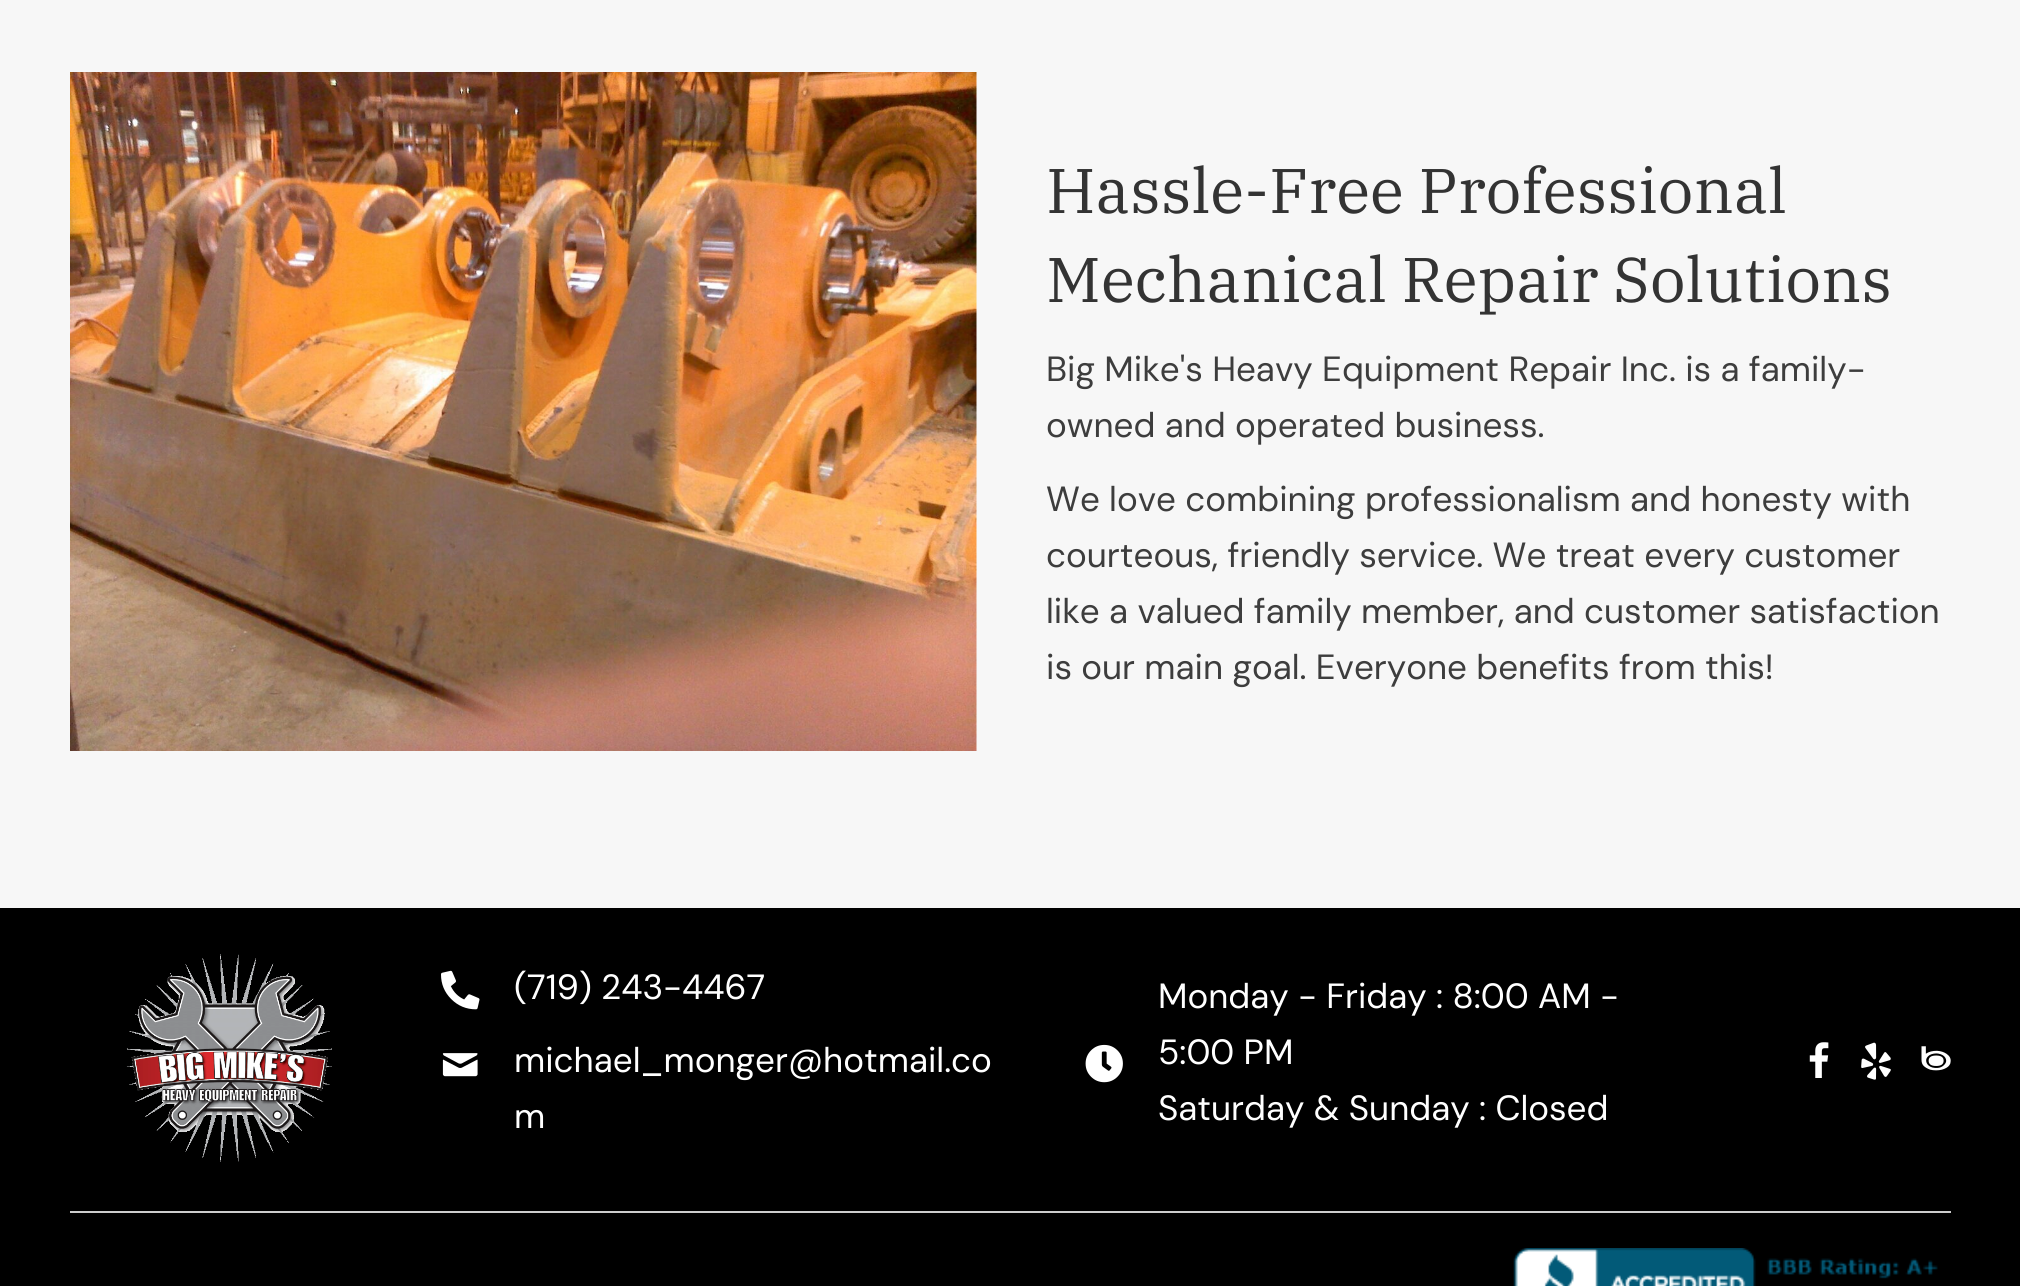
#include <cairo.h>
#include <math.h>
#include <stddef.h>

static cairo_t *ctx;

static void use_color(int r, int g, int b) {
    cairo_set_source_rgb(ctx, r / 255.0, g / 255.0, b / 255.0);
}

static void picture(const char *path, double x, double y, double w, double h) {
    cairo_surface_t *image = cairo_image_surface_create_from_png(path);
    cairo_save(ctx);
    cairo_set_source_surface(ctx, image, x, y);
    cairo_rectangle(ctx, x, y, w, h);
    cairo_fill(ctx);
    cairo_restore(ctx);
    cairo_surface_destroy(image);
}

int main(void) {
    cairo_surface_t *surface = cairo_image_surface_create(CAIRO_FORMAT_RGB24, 2020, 1286);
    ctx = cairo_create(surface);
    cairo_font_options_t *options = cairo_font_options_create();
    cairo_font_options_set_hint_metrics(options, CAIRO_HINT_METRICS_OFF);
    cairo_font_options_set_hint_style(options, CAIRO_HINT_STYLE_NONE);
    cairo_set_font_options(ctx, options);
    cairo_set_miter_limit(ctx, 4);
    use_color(247, 247, 247);
    cairo_paint(ctx);
    picture("img1.png", 70, 72, 907, 679);
    cairo_select_font_face(ctx, "IBM Plex Serif", CAIRO_FONT_SLANT_NORMAL, CAIRO_FONT_WEIGHT_NORMAL);
    cairo_set_font_size(ctx, 63);
    use_color(51, 51, 51);
    cairo_move_to(ctx, 1046, 213);
    cairo_show_text(ctx, "Hassle-Free Professional");
    cairo_move_to(ctx, 1046, 302);
    cairo_show_text(ctx, "Mechanical Repair Solutions");
    cairo_select_font_face(ctx, "DM Sans", CAIRO_FONT_SLANT_NORMAL, CAIRO_FONT_WEIGHT_NORMAL);
    cairo_set_font_size(ctx, 35);
    use_color(61, 61, 61);
    cairo_move_to(ctx, 1046, 381);
    cairo_show_text(ctx, "Big Mike's Heavy Equipment Repair Inc. is a family-");
    cairo_move_to(ctx, 1046, 437);
    cairo_show_text(ctx, "owned and operated business.");
    cairo_move_to(ctx, 1046, 511);
    cairo_show_text(ctx, "We love combining professionalism and honesty with");
    cairo_move_to(ctx, 1046, 567);
    cairo_show_text(ctx, "courteous, friendly service. We treat every customer");
    cairo_move_to(ctx, 1046, 623);
    cairo_show_text(ctx, "like a valued family member, and customer satisfaction");
    cairo_move_to(ctx, 1046, 679);
    cairo_show_text(ctx, "is our main goal. Everyone benefits from this!");
    use_color(0, 0, 0);
    cairo_rectangle(ctx, 0, 908, 2020, 378);
    cairo_fill(ctx);
    picture("img2.png", 126, 954, 206, 208);
    picture("img3.png", 441, 970, 39, 40);
    use_color(255, 255, 255);
    cairo_move_to(ctx, 514, 999);
    cairo_show_text(ctx, "(719) 243-4467");
    picture("img4.png", 442, 1053, 36, 24);
    cairo_move_to(ctx, 514, 1072);
    cairo_show_text(ctx, "michael_monger@hotmail.co");
    cairo_move_to(ctx, 514, 1128);
    cairo_show_text(ctx, "m");
    picture("img5.png", 1085, 1044, 38, 39);
    cairo_move_to(ctx, 1158, 1008);
    cairo_show_text(ctx, "Monday - Friday : 8:00 AM -");
    cairo_move_to(ctx, 1158, 1064);
    cairo_show_text(ctx, "5:00 PM");
    cairo_move_to(ctx, 1158, 1120);
    cairo_show_text(ctx, "Saturday & Sunday : Closed");
    picture("img6.png", 1809, 1042, 20, 36);
    picture("img7.png", 1861, 1042, 30, 38);
    picture("img8.png", 1921, 1046, 30, 25);
    use_color(204, 204, 204);
    cairo_rectangle(ctx, 70, 1211, 1881, 2);
    cairo_fill(ctx);
    picture("img9.png", 1513, 1248, 425, 38);
    cairo_surface_write_to_png(surface, "result.png");
    cairo_font_options_destroy(options);
    cairo_destroy(ctx);
    cairo_surface_destroy(surface);
    return 0;
}
